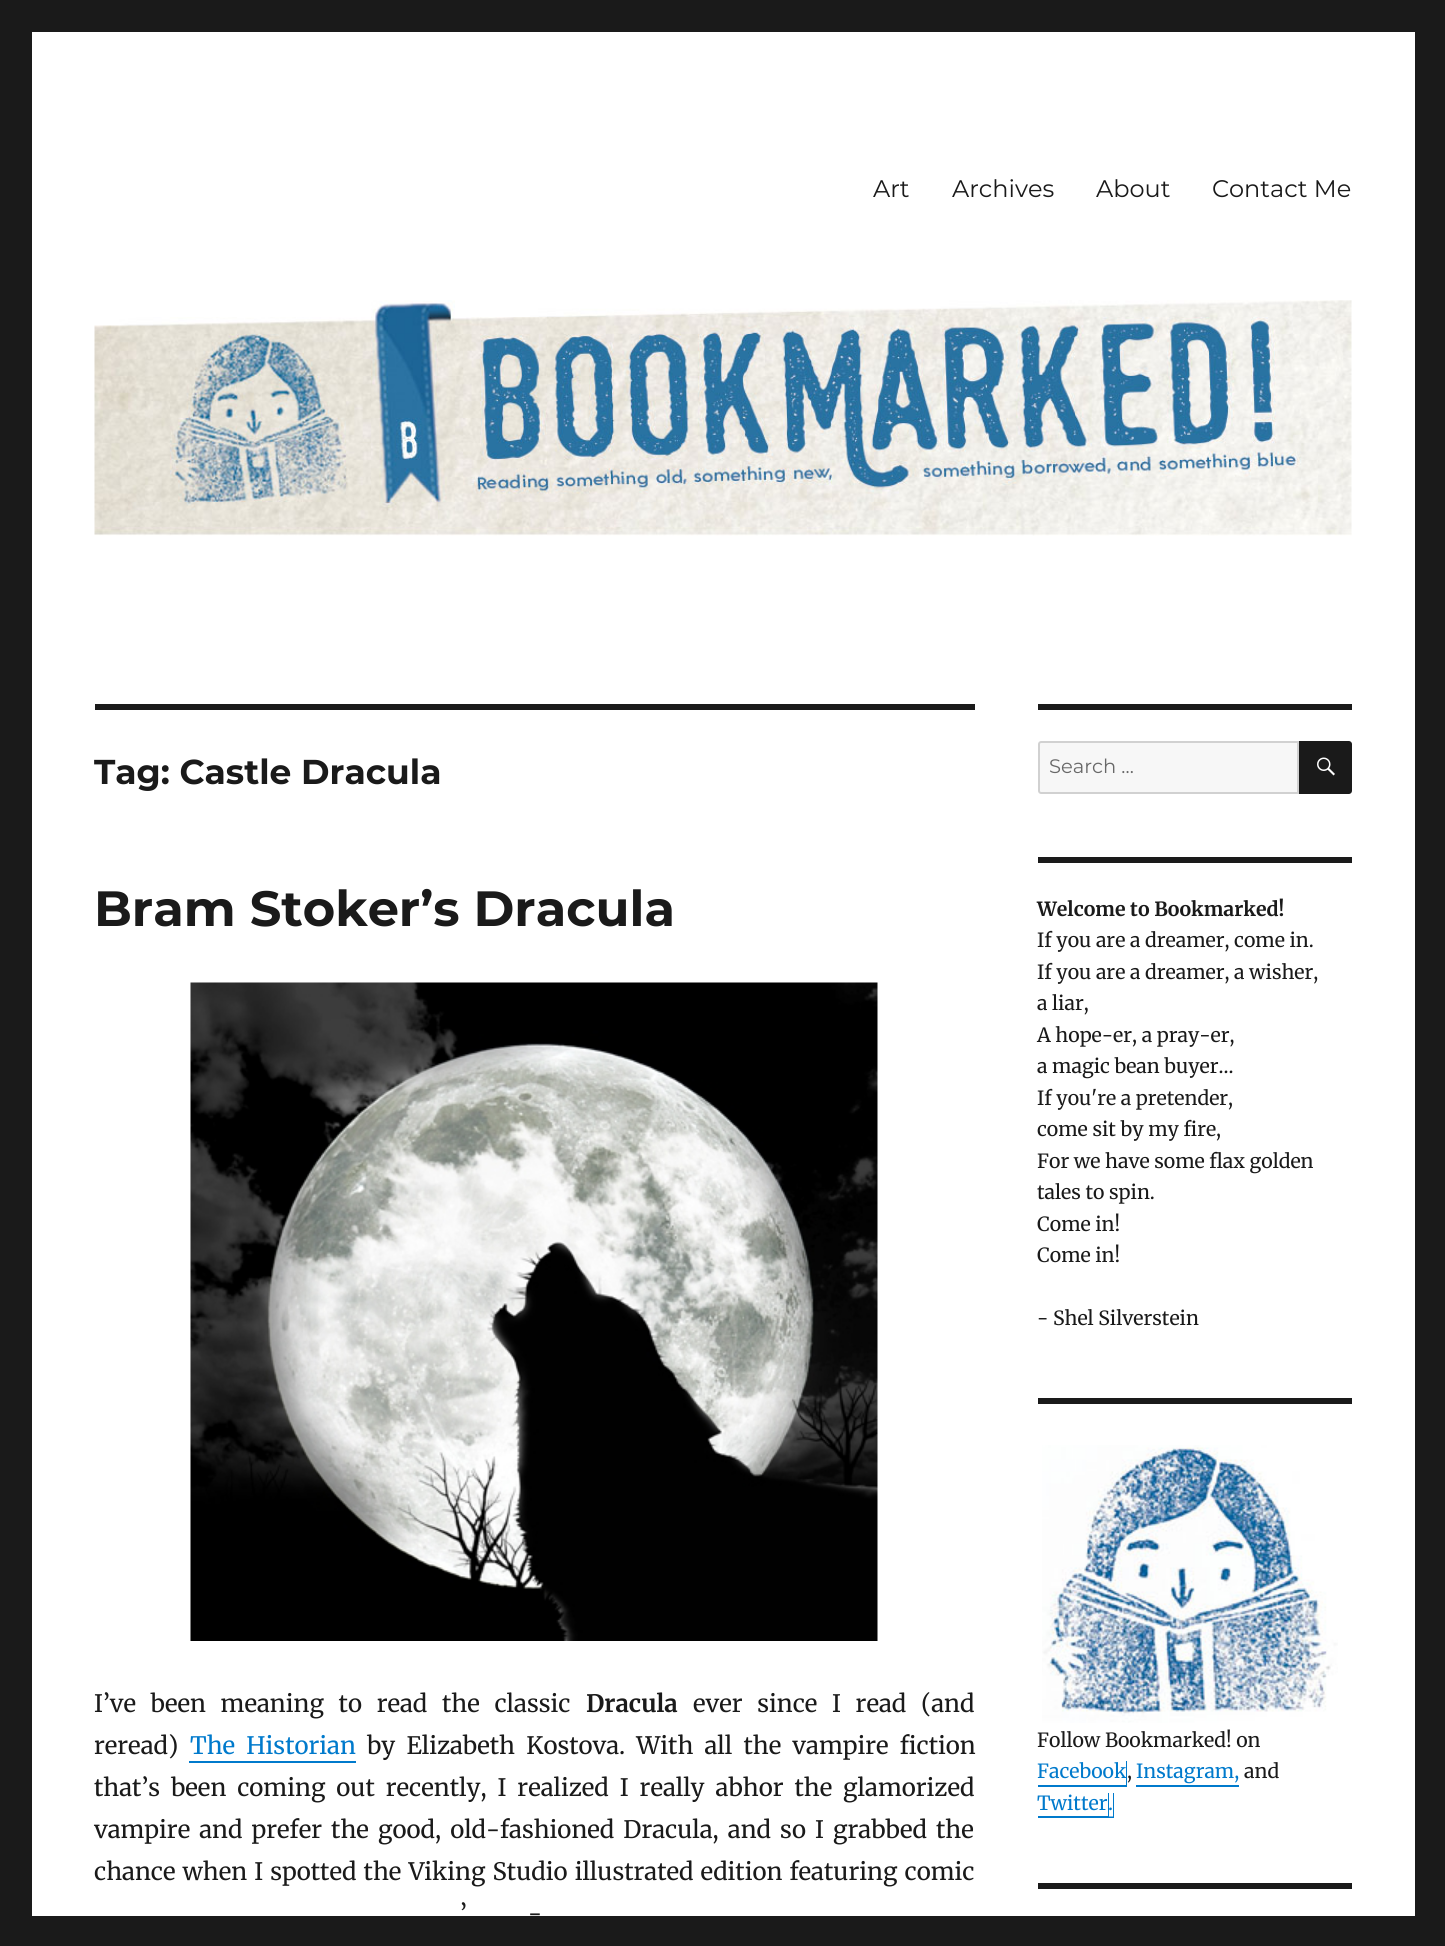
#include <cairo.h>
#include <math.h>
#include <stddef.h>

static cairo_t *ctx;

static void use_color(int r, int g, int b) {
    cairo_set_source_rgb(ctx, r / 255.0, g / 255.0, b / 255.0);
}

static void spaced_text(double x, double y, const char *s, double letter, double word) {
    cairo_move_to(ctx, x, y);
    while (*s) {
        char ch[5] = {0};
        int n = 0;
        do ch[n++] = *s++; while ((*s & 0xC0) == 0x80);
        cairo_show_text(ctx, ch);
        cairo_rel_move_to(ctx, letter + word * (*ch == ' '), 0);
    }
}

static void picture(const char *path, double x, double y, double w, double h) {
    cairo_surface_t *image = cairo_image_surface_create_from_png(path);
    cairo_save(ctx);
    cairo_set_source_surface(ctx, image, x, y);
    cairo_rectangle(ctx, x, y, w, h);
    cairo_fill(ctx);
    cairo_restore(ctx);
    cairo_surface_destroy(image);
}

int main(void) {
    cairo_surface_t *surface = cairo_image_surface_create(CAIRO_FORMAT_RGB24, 1445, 1946);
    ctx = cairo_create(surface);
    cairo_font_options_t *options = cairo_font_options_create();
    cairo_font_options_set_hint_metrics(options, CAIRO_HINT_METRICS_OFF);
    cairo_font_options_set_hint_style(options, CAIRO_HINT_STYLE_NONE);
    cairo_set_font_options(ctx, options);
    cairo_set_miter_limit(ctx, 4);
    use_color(26, 26, 26);
    cairo_paint(ctx);
    use_color(255, 255, 255);
    cairo_rectangle(ctx, 32, 32, 1383, 1884);
    cairo_fill(ctx);
    cairo_select_font_face(ctx, "Montserrat", CAIRO_FONT_SLANT_NORMAL, CAIRO_FONT_WEIGHT_NORMAL);
    cairo_set_font_size(ctx, 24);
    use_color(26, 26, 26);
    cairo_move_to(ctx, 873, 197);
    cairo_show_text(ctx, "Art");
    cairo_move_to(ctx, 952, 197);
    cairo_show_text(ctx, "Archives");
    cairo_move_to(ctx, 1096, 197);
    cairo_show_text(ctx, "About");
    cairo_move_to(ctx, 1212, 197);
    cairo_show_text(ctx, "Contact Me");
    picture("img1.png", 94, 300, 1258, 236);
    cairo_rectangle(ctx, 95, 704, 880, 6);
    cairo_fill(ctx);
    cairo_select_font_face(ctx, "Montserrat", CAIRO_FONT_SLANT_NORMAL, CAIRO_FONT_WEIGHT_BOLD);
    cairo_set_font_size(ctx, 34.5);
    cairo_move_to(ctx, 94, 784);
    cairo_show_text(ctx, "Tag: Castle Dracula");
    cairo_set_font_size(ctx, 49.5);
    cairo_move_to(ctx, 94, 926);
    cairo_show_text(ctx, "Bram Stoker’s Dracula");
    picture("img2.png", 190, 982, 688, 659);
    cairo_select_font_face(ctx, "Merriweather", CAIRO_FONT_SLANT_NORMAL, CAIRO_FONT_WEIGHT_NORMAL);
    cairo_set_font_size(ctx, 24);
    spaced_text(94, 1712, "I’ve been meaning to read the classic", 0, 9);
    cairo_select_font_face(ctx, "Merriweather", CAIRO_FONT_SLANT_NORMAL, CAIRO_FONT_WEIGHT_BOLD);
    cairo_move_to(ctx, 586, 1712);
    cairo_show_text(ctx, "Dracula");
    cairo_select_font_face(ctx, "Merriweather", CAIRO_FONT_SLANT_NORMAL, CAIRO_FONT_WEIGHT_NORMAL);
    spaced_text(693, 1712, "ever since I read (and", 0, 9);
    cairo_move_to(ctx, 94, 1754);
    cairo_show_text(ctx, "reread)");
    use_color(0, 122, 204);
    spaced_text(190, 1754, "The Historian", 0, 5.5);
    cairo_new_path(ctx);
    cairo_move_to(ctx, 189, 1761);
    cairo_line_to(ctx, 189, 1763);
    cairo_line_to(ctx, 356, 1763);
    cairo_line_to(ctx, 356, 1733);
    cairo_line_to(ctx, 356, 1761);
    cairo_close_path(ctx);
    cairo_fill(ctx);
    use_color(26, 26, 26);
    spaced_text(367, 1754, "by Elizabeth Kostova. With all the vampire fiction", 0, 5.5);
    spaced_text(94, 1796, "that’s been coming out recently, I realized I really abhor the glamorized", 0, 5.25);
    spaced_text(94, 1838, "vampire and prefer the good, old-fashioned Dracula, and so I grabbed the", 0, 3.4);
    spaced_text(94, 1880, "chance when I spotted the Viking Studio illustrated edition featuring comic", 0, 1.4);
    spaced_text(460, 1922, "’", 0, 4);
    spaced_text(528, 1922, "-", 0, 4);
    cairo_rectangle(ctx, 1038, 704, 314, 6);
    cairo_fill(ctx);
    use_color(247, 247, 247);
    cairo_new_path(ctx);
    cairo_move_to(ctx, 1041, 742);
    cairo_line_to(ctx, 1298, 742);
    cairo_line_to(ctx, 1298, 793);
    cairo_line_to(ctx, 1041, 793);
    cairo_curve_to(ctx, 1040, 793, 1039, 792, 1039, 791);
    cairo_line_to(ctx, 1039, 744);
    cairo_curve_to(ctx, 1039, 743, 1040, 742, 1041, 742);
    cairo_close_path(ctx);
    cairo_fill_preserve(ctx);
    use_color(209, 209, 209);
    cairo_stroke(ctx);
    cairo_select_font_face(ctx, "Montserrat", CAIRO_FONT_SLANT_NORMAL, CAIRO_FONT_WEIGHT_NORMAL);
    cairo_set_font_size(ctx, 19.5);
    use_color(104, 104, 104);
    cairo_move_to(ctx, 1049, 773);
    cairo_show_text(ctx, "Search …");
    use_color(26, 26, 26);
    cairo_new_path(ctx);
    cairo_move_to(ctx, 1299, 741);
    cairo_line_to(ctx, 1349, 741);
    cairo_curve_to(ctx, 1350.5, 741, 1352, 742.5, 1352, 744);
    cairo_line_to(ctx, 1352, 791);
    cairo_curve_to(ctx, 1352, 792.5, 1350.5, 794, 1349, 794);
    cairo_line_to(ctx, 1299, 794);
    cairo_close_path(ctx);
    cairo_fill(ctx);
    picture("img3.png", 1317, 757, 18, 19);
    cairo_rectangle(ctx, 1038, 857, 314, 6);
    cairo_fill(ctx);
    cairo_select_font_face(ctx, "Merriweather", CAIRO_FONT_SLANT_NORMAL, CAIRO_FONT_WEIGHT_BOLD);
    cairo_move_to(ctx, 1037, 916);
    cairo_show_text(ctx, "Welcome to Bookmarked!");
    cairo_select_font_face(ctx, "Merriweather", CAIRO_FONT_SLANT_NORMAL, CAIRO_FONT_WEIGHT_NORMAL);
    cairo_move_to(ctx, 1037, 947);
    cairo_show_text(ctx, "If you are a dreamer, come in.");
    cairo_move_to(ctx, 1037, 979);
    cairo_show_text(ctx, "If you are a dreamer, a wisher,");
    cairo_move_to(ctx, 1037, 1010);
    cairo_show_text(ctx, "a liar,");
    cairo_move_to(ctx, 1037, 1042);
    cairo_show_text(ctx, "A hope-er, a pray-er,");
    cairo_move_to(ctx, 1037, 1073);
    cairo_show_text(ctx, "a magic bean buyer...");
    cairo_move_to(ctx, 1037, 1105);
    cairo_show_text(ctx, "If you're a pretender,");
    cairo_move_to(ctx, 1037, 1136);
    cairo_show_text(ctx, "come sit by my fire,");
    cairo_move_to(ctx, 1037, 1168);
    cairo_show_text(ctx, "For we have some flax golden");
    cairo_move_to(ctx, 1037, 1199);
    cairo_show_text(ctx, "tales to spin.");
    cairo_move_to(ctx, 1037, 1231);
    cairo_show_text(ctx, "Come in!");
    cairo_move_to(ctx, 1037, 1262);
    cairo_show_text(ctx, "Come in!");
    cairo_move_to(ctx, 1037, 1325);
    cairo_show_text(ctx, "- Shel Silverstein");
    cairo_rectangle(ctx, 1038, 1398, 314, 6);
    cairo_fill(ctx);
    picture("img4.png", 1042, 1445, 296, 278);
    cairo_move_to(ctx, 1037, 1747);
    cairo_show_text(ctx, "Follow Bookmarked! on");
    use_color(0, 122, 204);
    cairo_new_path(ctx);
    cairo_move_to(ctx, 1038, 1785);
    cairo_line_to(ctx, 1038, 1787);
    cairo_line_to(ctx, 1127, 1787);
    cairo_line_to(ctx, 1127, 1761);
    cairo_line_to(ctx, 1126, 1761);
    cairo_line_to(ctx, 1126, 1785);
    cairo_close_path(ctx);
    cairo_fill(ctx);
    cairo_move_to(ctx, 1037, 1778);
    cairo_show_text(ctx, "Facebook");
    use_color(26, 26, 26);
    cairo_move_to(ctx, 1127, 1778);
    cairo_show_text(ctx, ",");
    use_color(0, 122, 204);
    cairo_move_to(ctx, 1136, 1778);
    cairo_show_text(ctx, "Instagram,");
    cairo_rectangle(ctx, 1136, 1785, 103, 2);
    cairo_fill(ctx);
    use_color(26, 26, 26);
    cairo_move_to(ctx, 1244, 1778);
    cairo_show_text(ctx, "and");
    use_color(0, 122, 204);
    cairo_new_path(ctx);
    cairo_move_to(ctx, 1038, 1816);
    cairo_line_to(ctx, 1038, 1818);
    cairo_line_to(ctx, 1109, 1818);
    cairo_line_to(ctx, 1109, 1793);
    cairo_line_to(ctx, 1108, 1793);
    cairo_line_to(ctx, 1108, 1816);
    cairo_close_path(ctx);
    cairo_fill(ctx);
    cairo_move_to(ctx, 1037, 1810);
    cairo_show_text(ctx, "Twitter");
    cairo_new_path(ctx);
    cairo_move_to(ctx, 1109, 1816.5);
    cairo_line_to(ctx, 1109, 1818);
    cairo_line_to(ctx, 1114, 1818);
    cairo_line_to(ctx, 1114, 1793);
    cairo_line_to(ctx, 1113, 1793);
    cairo_line_to(ctx, 1113, 1816.5);
    cairo_close_path(ctx);
    cairo_fill(ctx);
    cairo_move_to(ctx, 1108, 1810);
    cairo_show_text(ctx, ".");
    use_color(26, 26, 26);
    cairo_rectangle(ctx, 1038, 1883, 314, 6);
    cairo_fill(ctx);
    cairo_surface_write_to_png(surface, "result.png");
    cairo_font_options_destroy(options);
    cairo_destroy(ctx);
    cairo_surface_destroy(surface);
    return 0;
}
